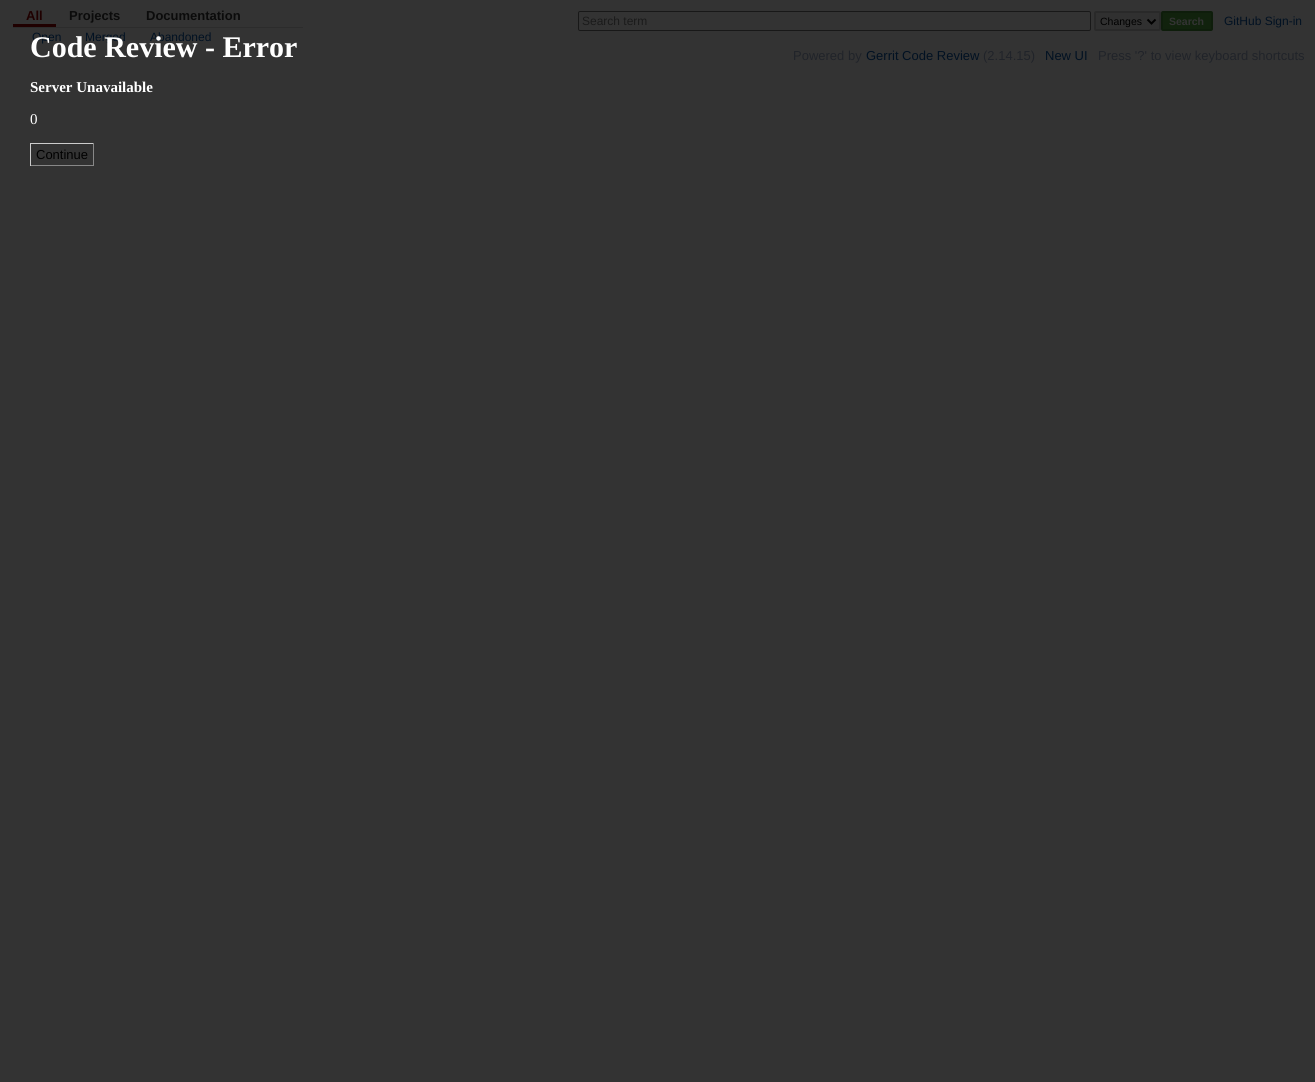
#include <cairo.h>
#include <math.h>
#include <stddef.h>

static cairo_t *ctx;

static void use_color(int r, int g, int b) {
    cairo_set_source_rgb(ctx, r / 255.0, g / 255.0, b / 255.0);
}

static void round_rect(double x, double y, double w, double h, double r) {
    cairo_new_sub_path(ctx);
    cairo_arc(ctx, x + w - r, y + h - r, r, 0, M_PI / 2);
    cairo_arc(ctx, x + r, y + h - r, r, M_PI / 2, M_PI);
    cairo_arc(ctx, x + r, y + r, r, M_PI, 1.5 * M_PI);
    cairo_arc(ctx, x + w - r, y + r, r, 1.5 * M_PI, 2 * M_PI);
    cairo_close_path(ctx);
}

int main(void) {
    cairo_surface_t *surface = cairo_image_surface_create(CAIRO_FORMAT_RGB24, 1315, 1082);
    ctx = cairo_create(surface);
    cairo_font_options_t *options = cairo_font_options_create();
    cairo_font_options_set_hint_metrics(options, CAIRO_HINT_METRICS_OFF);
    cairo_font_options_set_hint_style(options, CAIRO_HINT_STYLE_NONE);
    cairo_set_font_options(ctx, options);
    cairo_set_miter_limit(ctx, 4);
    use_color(51, 51, 51);
    cairo_paint(ctx);
    use_color(44, 44, 44);
    cairo_rectangle(ctx, 13, 27, 290, 1);
    cairo_fill(ctx);
    use_color(31, 0, 0);
    cairo_rectangle(ctx, 13, 24, 43, 3);
    cairo_fill(ctx);
    cairo_select_font_face(ctx, "Liberation Sans", CAIRO_FONT_SLANT_NORMAL, CAIRO_FONT_WEIGHT_BOLD);
    cairo_set_font_size(ctx, 13);
    cairo_move_to(ctx, 26, 20);
    cairo_show_text(ctx, "All");
    use_color(11, 11, 11);
    cairo_move_to(ctx, 69, 20);
    cairo_show_text(ctx, "Projects");
    cairo_move_to(ctx, 146, 20);
    cairo_show_text(ctx, "Documentation");
    cairo_select_font_face(ctx, "Liberation Sans", CAIRO_FONT_SLANT_NORMAL, CAIRO_FONT_WEIGHT_NORMAL);
    cairo_set_font_size(ctx, 12);
    use_color(1, 17, 34);
    cairo_move_to(ctx, 32, 41);
    cairo_show_text(ctx, "Open");
    cairo_move_to(ctx, 85, 41);
    cairo_show_text(ctx, "Merged");
    cairo_move_to(ctx, 150, 41);
    cairo_show_text(ctx, "Abandoned");
    round_rect(578.5, 11.5, 512, 19, 1.5);
    use_color(24, 24, 24);
    cairo_set_line_width(ctx, 1);
    cairo_stroke(ctx);
    use_color(26, 26, 26);
    cairo_move_to(ctx, 582, 25);
    cairo_show_text(ctx, "Search term");
    use_color(48, 48, 48);
    round_rect(1095, 12, 65, 18, 1);
    cairo_fill_preserve(ctx);
    use_color(41, 41, 41);
    cairo_set_line_width(ctx, 2);
    cairo_stroke(ctx);
    cairo_new_path(ctx);
    cairo_move_to(ctx, 1147.5, 19.5);
    cairo_line_to(ctx, 1151.5, 23.5);
    cairo_line_to(ctx, 1155.5, 19.5);
    use_color(0, 0, 0);
    cairo_stroke(ctx);
    cairo_set_font_size(ctx, 10.5);
    cairo_move_to(ctx, 1100, 25);
    cairo_show_text(ctx, "Changes");
    use_color(17, 34, 13);
    round_rect(1161, 11, 52, 20, 2);
    cairo_fill(ctx);
    round_rect(1162, 12, 50, 18, 1);
    cairo_set_source_rgba(ctx, 0, 0, 0, 0.15);
    cairo_stroke(ctx);
    cairo_select_font_face(ctx, "Liberation Sans", CAIRO_FONT_SLANT_NORMAL, CAIRO_FONT_WEIGHT_BOLD);
    use_color(51, 51, 51);
    cairo_move_to(ctx, 1169, 25);
    cairo_show_text(ctx, "Search");
    cairo_select_font_face(ctx, "Liberation Sans", CAIRO_FONT_SLANT_NORMAL, CAIRO_FONT_WEIGHT_NORMAL);
    cairo_set_font_size(ctx, 12);
    use_color(1, 17, 34);
    cairo_move_to(ctx, 1224, 25);
    cairo_show_text(ctx, "GitHub Sign-in");
    cairo_select_font_face(ctx, "Liberation Serif", CAIRO_FONT_SLANT_NORMAL, CAIRO_FONT_WEIGHT_BOLD);
    cairo_set_font_size(ctx, 30);
    use_color(255, 255, 255);
    cairo_move_to(ctx, 30, 57);
    cairo_show_text(ctx, "Code Review - Error");
    cairo_set_font_size(ctx, 15);
    cairo_move_to(ctx, 30, 92);
    cairo_show_text(ctx, "Server Unavailable");
    cairo_select_font_face(ctx, "Liberation Serif", CAIRO_FONT_SLANT_NORMAL, CAIRO_FONT_WEIGHT_NORMAL);
    cairo_move_to(ctx, 30, 124);
    cairo_show_text(ctx, "0");
    use_color(204, 204, 204);
    cairo_rectangle(ctx, 30, 143, 64, 1);
    cairo_fill(ctx);
    use_color(136, 136, 136);
    cairo_rectangle(ctx, 93, 143, 1, 23);
    cairo_fill(ctx);
    cairo_rectangle(ctx, 30, 165, 64, 1);
    cairo_fill(ctx);
    use_color(204, 204, 204);
    cairo_rectangle(ctx, 30, 143, 1, 23);
    cairo_fill(ctx);
    cairo_select_font_face(ctx, "Liberation Sans", CAIRO_FONT_SLANT_NORMAL, CAIRO_FONT_WEIGHT_NORMAL);
    cairo_set_font_size(ctx, 13);
    use_color(0, 0, 0);
    cairo_move_to(ctx, 36, 159);
    cairo_show_text(ctx, "Continue");
    use_color(32, 35, 41);
    cairo_move_to(ctx, 793, 60);
    cairo_show_text(ctx, "Powered by");
    use_color(1, 17, 34);
    cairo_move_to(ctx, 866, 60);
    cairo_show_text(ctx, "Gerrit Code Review");
    use_color(32, 35, 41);
    cairo_move_to(ctx, 983, 60);
    cairo_show_text(ctx, "(2.14.15)");
    use_color(1, 17, 34);
    cairo_move_to(ctx, 1045, 60);
    cairo_show_text(ctx, "New UI");
    use_color(32, 35, 41);
    cairo_move_to(ctx, 1098, 60);
    cairo_show_text(ctx, "Press '?' to view keyboard shortcuts");
    cairo_surface_write_to_png(surface, "result.png");
    cairo_font_options_destroy(options);
    cairo_destroy(ctx);
    cairo_surface_destroy(surface);
    return 0;
}
